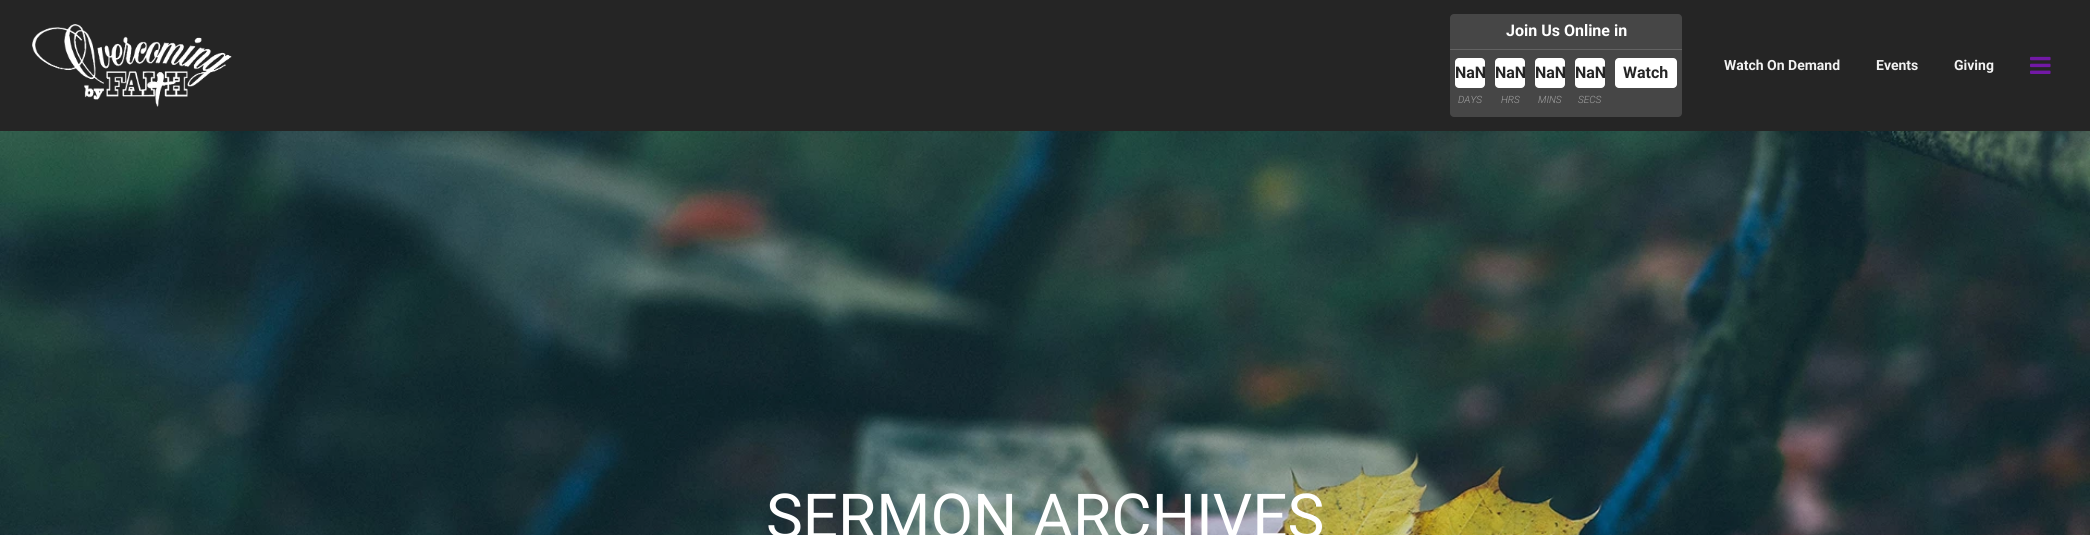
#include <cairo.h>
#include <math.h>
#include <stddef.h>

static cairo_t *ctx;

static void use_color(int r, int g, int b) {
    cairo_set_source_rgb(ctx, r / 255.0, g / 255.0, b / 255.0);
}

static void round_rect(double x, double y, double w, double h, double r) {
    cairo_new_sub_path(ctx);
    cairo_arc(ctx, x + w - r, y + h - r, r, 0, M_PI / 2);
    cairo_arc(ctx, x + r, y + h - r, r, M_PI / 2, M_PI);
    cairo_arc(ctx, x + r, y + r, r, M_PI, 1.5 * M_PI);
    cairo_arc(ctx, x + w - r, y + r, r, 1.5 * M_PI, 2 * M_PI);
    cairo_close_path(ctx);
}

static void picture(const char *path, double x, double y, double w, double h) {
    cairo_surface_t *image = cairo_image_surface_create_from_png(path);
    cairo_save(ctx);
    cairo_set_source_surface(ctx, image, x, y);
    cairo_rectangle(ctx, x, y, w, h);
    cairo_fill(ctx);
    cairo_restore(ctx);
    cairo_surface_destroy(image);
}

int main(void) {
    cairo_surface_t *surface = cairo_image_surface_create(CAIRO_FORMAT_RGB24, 2090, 535);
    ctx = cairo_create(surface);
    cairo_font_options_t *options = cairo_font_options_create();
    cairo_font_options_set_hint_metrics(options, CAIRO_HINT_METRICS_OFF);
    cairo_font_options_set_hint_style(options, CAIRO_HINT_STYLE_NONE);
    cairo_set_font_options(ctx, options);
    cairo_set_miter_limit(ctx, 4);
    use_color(255, 255, 255);
    cairo_paint(ctx);
    use_color(37, 37, 37);
    cairo_rectangle(ctx, 0, 0, 2090, 131);
    cairo_fill(ctx);
    picture("img1.png", 32, 24, 200, 83);
    use_color(70, 70, 70);
    round_rect(1450, 14, 232, 103, 4);
    cairo_fill(ctx);
    use_color(98, 98, 98);
    cairo_rectangle(ctx, 1450, 49, 232, 1);
    cairo_fill(ctx);
    cairo_select_font_face(ctx, "Roboto", CAIRO_FONT_SLANT_NORMAL, CAIRO_FONT_WEIGHT_BOLD);
    cairo_set_font_size(ctx, 16);
    use_color(255, 255, 255);
    cairo_move_to(ctx, 1506, 36);
    cairo_show_text(ctx, "Join Us Online in");
    round_rect(1455, 58, 30, 30, 4);
    cairo_fill(ctx);
    cairo_save(ctx);
    round_rect(1455, 58, 30, 30, 4);
    cairo_clip(ctx);
    use_color(37, 37, 37);
    cairo_move_to(ctx, 1455, 78);
    cairo_show_text(ctx, "NaN");
    cairo_restore(ctx);
    cairo_select_font_face(ctx, "Roboto Light", CAIRO_FONT_SLANT_ITALIC, CAIRO_FONT_WEIGHT_NORMAL);
    cairo_set_font_size(ctx, 10);
    use_color(163, 163, 163);
    cairo_move_to(ctx, 1458, 103);
    cairo_show_text(ctx, "DAYS");
    use_color(255, 255, 255);
    round_rect(1495, 58, 30, 30, 4);
    cairo_fill(ctx);
    cairo_save(ctx);
    round_rect(1495, 58, 30, 30, 4);
    cairo_clip(ctx);
    cairo_select_font_face(ctx, "Roboto", CAIRO_FONT_SLANT_NORMAL, CAIRO_FONT_WEIGHT_BOLD);
    cairo_set_font_size(ctx, 16);
    use_color(37, 37, 37);
    cairo_move_to(ctx, 1495, 78);
    cairo_show_text(ctx, "NaN");
    cairo_restore(ctx);
    use_color(163, 163, 163);
    cairo_move_to(ctx, 1501, 103);
    cairo_show_text(ctx, "HRS");
    use_color(255, 255, 255);
    round_rect(1535, 58, 30, 30, 4);
    cairo_fill(ctx);
    cairo_save(ctx);
    round_rect(1535, 58, 30, 30, 4);
    cairo_clip(ctx);
    cairo_select_font_face(ctx, "Roboto", CAIRO_FONT_SLANT_NORMAL, CAIRO_FONT_WEIGHT_BOLD);
    cairo_set_font_size(ctx, 16);
    use_color(37, 37, 37);
    cairo_move_to(ctx, 1535, 78);
    cairo_show_text(ctx, "NaN");
    cairo_restore(ctx);
    use_color(163, 163, 163);
    cairo_move_to(ctx, 1538, 103);
    cairo_show_text(ctx, "MINS");
    use_color(255, 255, 255);
    round_rect(1575, 58, 30, 30, 4);
    cairo_fill(ctx);
    cairo_save(ctx);
    round_rect(1575, 58, 30, 30, 4);
    cairo_clip(ctx);
    cairo_select_font_face(ctx, "Roboto", CAIRO_FONT_SLANT_NORMAL, CAIRO_FONT_WEIGHT_BOLD);
    cairo_set_font_size(ctx, 16);
    use_color(37, 37, 37);
    cairo_move_to(ctx, 1575, 78);
    cairo_show_text(ctx, "NaN");
    cairo_restore(ctx);
    use_color(163, 163, 163);
    cairo_move_to(ctx, 1578, 103);
    cairo_show_text(ctx, "SECS");
    use_color(255, 255, 255);
    round_rect(1615, 58, 62, 30, 4);
    cairo_fill(ctx);
    cairo_select_font_face(ctx, "Roboto", CAIRO_FONT_SLANT_NORMAL, CAIRO_FONT_WEIGHT_BOLD);
    cairo_set_font_size(ctx, 16);
    use_color(37, 37, 37);
    cairo_move_to(ctx, 1623, 78);
    cairo_show_text(ctx, "Watch");
    cairo_set_font_size(ctx, 14);
    use_color(242, 242, 242);
    cairo_move_to(ctx, 1724, 70);
    cairo_show_text(ctx, "Watch On Demand");
    cairo_move_to(ctx, 1876, 70);
    cairo_show_text(ctx, "Events");
    cairo_move_to(ctx, 1954, 70);
    cairo_show_text(ctx, "Giving");
    picture("img2.png", 2030, 56, 21, 18);
    picture("img3.png", 0, 131, 2090, 404);
    cairo_select_font_face(ctx, "Roboto", CAIRO_FONT_SLANT_NORMAL, CAIRO_FONT_WEIGHT_NORMAL);
    cairo_set_font_size(ctx, 62);
    use_color(255, 255, 255);
    cairo_move_to(ctx, 766, 538);
    cairo_show_text(ctx, "SERMON ARCHIVES");
    cairo_surface_write_to_png(surface, "result.png");
    cairo_font_options_destroy(options);
    cairo_destroy(ctx);
    cairo_surface_destroy(surface);
    return 0;
}
